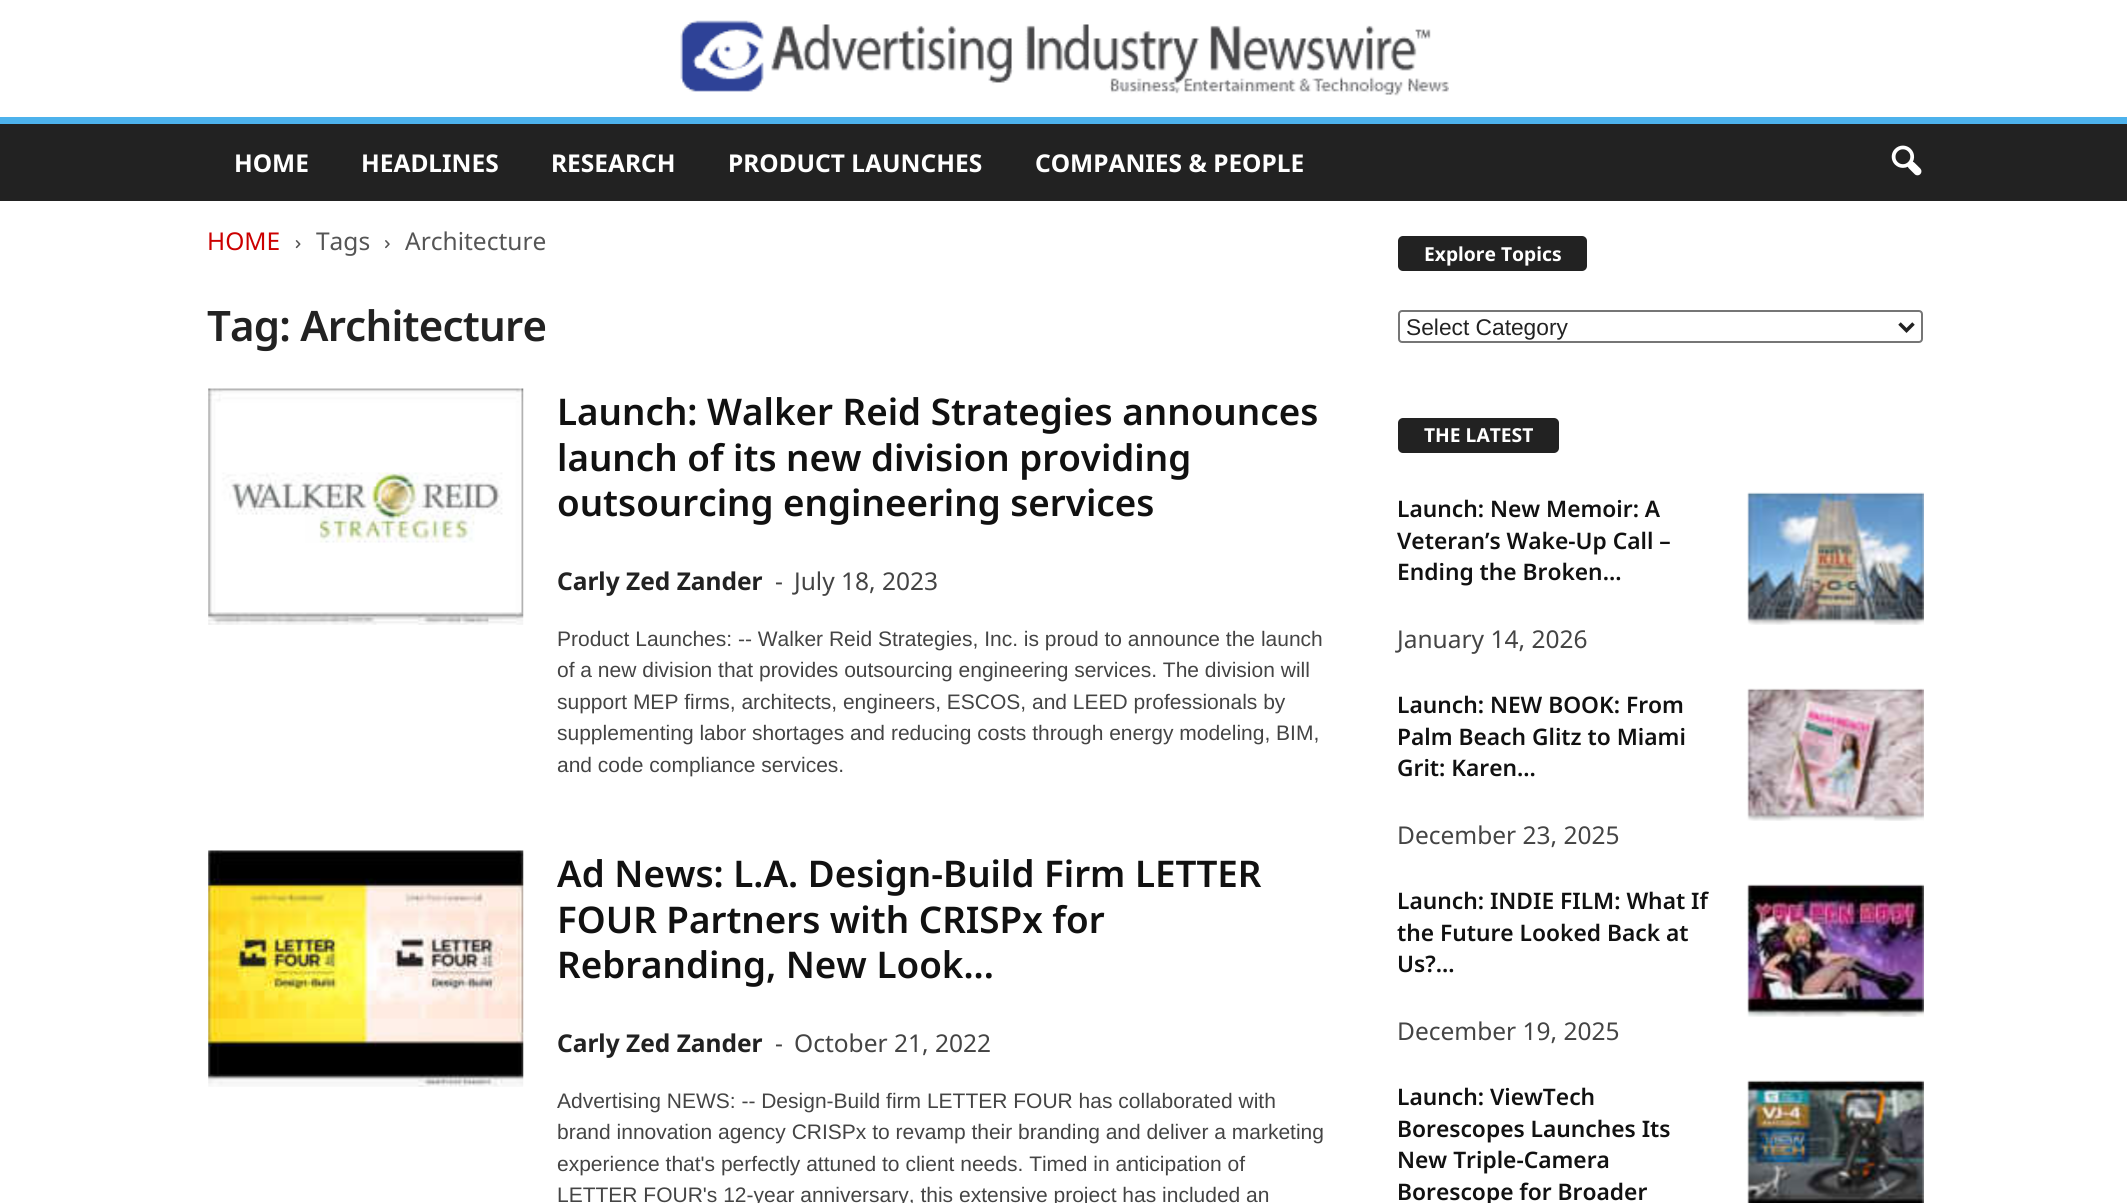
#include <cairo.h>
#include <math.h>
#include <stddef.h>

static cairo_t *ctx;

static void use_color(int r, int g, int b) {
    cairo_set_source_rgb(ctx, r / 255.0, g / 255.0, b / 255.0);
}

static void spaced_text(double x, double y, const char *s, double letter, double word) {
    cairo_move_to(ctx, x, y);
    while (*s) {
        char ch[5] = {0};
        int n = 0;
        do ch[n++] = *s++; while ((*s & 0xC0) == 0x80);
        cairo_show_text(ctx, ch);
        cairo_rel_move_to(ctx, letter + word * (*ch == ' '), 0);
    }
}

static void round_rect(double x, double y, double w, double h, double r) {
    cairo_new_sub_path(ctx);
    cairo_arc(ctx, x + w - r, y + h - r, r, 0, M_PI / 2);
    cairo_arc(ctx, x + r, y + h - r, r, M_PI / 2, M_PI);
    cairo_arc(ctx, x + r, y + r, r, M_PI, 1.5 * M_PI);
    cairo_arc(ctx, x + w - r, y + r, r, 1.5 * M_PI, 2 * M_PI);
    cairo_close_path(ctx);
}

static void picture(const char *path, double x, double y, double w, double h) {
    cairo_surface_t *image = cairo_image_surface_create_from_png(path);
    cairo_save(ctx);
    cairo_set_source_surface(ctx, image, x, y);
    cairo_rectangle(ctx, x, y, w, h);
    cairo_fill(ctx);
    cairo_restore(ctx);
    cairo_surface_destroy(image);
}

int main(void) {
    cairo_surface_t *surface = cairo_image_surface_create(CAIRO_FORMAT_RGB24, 2127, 1203);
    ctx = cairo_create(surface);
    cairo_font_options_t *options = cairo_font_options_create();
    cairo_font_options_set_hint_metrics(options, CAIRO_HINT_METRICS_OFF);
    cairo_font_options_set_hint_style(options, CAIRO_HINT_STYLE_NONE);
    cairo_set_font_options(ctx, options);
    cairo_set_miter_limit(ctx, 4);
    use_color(255, 255, 255);
    cairo_paint(ctx);
    picture("img1.png", 680, 20, 769, 76);
    use_color(34, 34, 34);
    cairo_rectangle(ctx, 0, 124, 2127, 77);
    cairo_fill(ctx);
    use_color(77, 178, 236);
    cairo_rectangle(ctx, 0, 117, 2127, 7);
    cairo_fill(ctx);
    cairo_select_font_face(ctx, "Noto Sans", CAIRO_FONT_SLANT_NORMAL, CAIRO_FONT_WEIGHT_BOLD);
    cairo_set_font_size(ctx, 24.5);
    use_color(255, 255, 255);
    cairo_move_to(ctx, 234, 172);
    cairo_show_text(ctx, "HOME");
    cairo_move_to(ctx, 361, 172);
    cairo_show_text(ctx, "HEADLINES");
    cairo_move_to(ctx, 551, 172);
    cairo_show_text(ctx, "RESEARCH");
    cairo_move_to(ctx, 728, 172);
    cairo_show_text(ctx, "PRODUCT LAUNCHES");
    cairo_move_to(ctx, 1035, 172);
    cairo_show_text(ctx, "COMPANIES & PEOPLE");
    picture("img2.png", 1891, 145, 31, 31);
    cairo_select_font_face(ctx, "Noto Sans", CAIRO_FONT_SLANT_NORMAL, CAIRO_FONT_WEIGHT_NORMAL);
    use_color(204, 0, 0);
    cairo_move_to(ctx, 207, 250);
    cairo_show_text(ctx, "HOME");
    picture("img3.png", 295, 240, 6, 9);
    use_color(85, 85, 85);
    cairo_move_to(ctx, 316, 250);
    cairo_show_text(ctx, "Tags");
    picture("img4.png", 385, 240, 5, 9);
    cairo_move_to(ctx, 405, 250);
    cairo_show_text(ctx, "Architecture");
    cairo_select_font_face(ctx, "Noto Sans SemiBold", CAIRO_FONT_SLANT_NORMAL, CAIRO_FONT_WEIGHT_NORMAL);
    cairo_set_font_size(ctx, 42);
    use_color(34, 34, 34);
    spaced_text(207, 341, "Tag: Architecture", -0.8, 0);
    picture("img5.png", 208, 388, 316, 237);
    cairo_set_font_size(ctx, 36.75);
    use_color(17, 17, 17);
    cairo_move_to(ctx, 557, 425);
    cairo_show_text(ctx, "Launch: Walker Reid Strategies announces");
    cairo_move_to(ctx, 557, 471);
    cairo_show_text(ctx, "launch of its new division providing");
    cairo_move_to(ctx, 557, 516);
    cairo_show_text(ctx, "outsourcing engineering services");
    cairo_select_font_face(ctx, "Noto Sans", CAIRO_FONT_SLANT_NORMAL, CAIRO_FONT_WEIGHT_BOLD);
    cairo_set_font_size(ctx, 24.5);
    use_color(34, 34, 34);
    cairo_move_to(ctx, 557, 590);
    cairo_show_text(ctx, "Carly Zed Zander");
    cairo_select_font_face(ctx, "Noto Sans", CAIRO_FONT_SLANT_NORMAL, CAIRO_FONT_WEIGHT_NORMAL);
    use_color(68, 68, 68);
    cairo_move_to(ctx, 775, 590);
    cairo_show_text(ctx, "-");
    cairo_move_to(ctx, 794, 590);
    cairo_show_text(ctx, "July 18, 2023");
    cairo_select_font_face(ctx, "Liberation Sans", CAIRO_FONT_SLANT_NORMAL, CAIRO_FONT_WEIGHT_NORMAL);
    cairo_set_font_size(ctx, 21);
    cairo_move_to(ctx, 557, 646);
    cairo_show_text(ctx, "Product Launches: -- Walker Reid Strategies, Inc. is proud to announce the launch");
    cairo_move_to(ctx, 557, 677);
    cairo_show_text(ctx, "of a new division that provides outsourcing engineering services. The division will");
    cairo_move_to(ctx, 557, 709);
    cairo_show_text(ctx, "support MEP firms, architects, engineers, ESCOS, and LEED professionals by");
    cairo_move_to(ctx, 557, 740);
    cairo_show_text(ctx, "supplementing labor shortages and reducing costs through energy modeling, BIM,");
    cairo_move_to(ctx, 557, 772);
    cairo_show_text(ctx, "and code compliance services.");
    picture("img6.png", 208, 850, 316, 237);
    cairo_select_font_face(ctx, "Noto Sans SemiBold", CAIRO_FONT_SLANT_NORMAL, CAIRO_FONT_WEIGHT_NORMAL);
    cairo_set_font_size(ctx, 36.75);
    use_color(17, 17, 17);
    cairo_move_to(ctx, 557, 887);
    cairo_show_text(ctx, "Ad News: L.A. Design-Build Firm LETTER");
    cairo_move_to(ctx, 557, 933);
    cairo_show_text(ctx, "FOUR Partners with CRISPx for");
    cairo_move_to(ctx, 557, 978);
    cairo_show_text(ctx, "Rebranding, New Look...");
    cairo_select_font_face(ctx, "Noto Sans", CAIRO_FONT_SLANT_NORMAL, CAIRO_FONT_WEIGHT_BOLD);
    cairo_set_font_size(ctx, 24.5);
    use_color(34, 34, 34);
    cairo_move_to(ctx, 557, 1052);
    cairo_show_text(ctx, "Carly Zed Zander");
    cairo_select_font_face(ctx, "Noto Sans", CAIRO_FONT_SLANT_NORMAL, CAIRO_FONT_WEIGHT_NORMAL);
    use_color(68, 68, 68);
    cairo_move_to(ctx, 775, 1052);
    cairo_show_text(ctx, "-");
    cairo_move_to(ctx, 794, 1052);
    cairo_show_text(ctx, "October 21, 2022");
    cairo_select_font_face(ctx, "Liberation Sans", CAIRO_FONT_SLANT_NORMAL, CAIRO_FONT_WEIGHT_NORMAL);
    cairo_set_font_size(ctx, 21);
    cairo_move_to(ctx, 557, 1108);
    cairo_show_text(ctx, "Advertising NEWS: -- Design-Build firm LETTER FOUR has collaborated with");
    cairo_move_to(ctx, 557, 1139);
    cairo_show_text(ctx, "brand innovation agency CRISPx to revamp their branding and deliver a marketing");
    cairo_move_to(ctx, 557, 1171);
    cairo_show_text(ctx, "experience that's perfectly attuned to client needs. Timed in anticipation of");
    cairo_move_to(ctx, 557, 1202);
    cairo_show_text(ctx, "LETTER FOUR's 12-year anniversary, this extensive project has included an");
    use_color(34, 34, 34);
    round_rect(1398, 236, 189, 35, 5);
    cairo_fill(ctx);
    cairo_select_font_face(ctx, "Noto Sans", CAIRO_FONT_SLANT_NORMAL, CAIRO_FONT_WEIGHT_BOLD);
    cairo_set_font_size(ctx, 19.25);
    use_color(255, 255, 255);
    cairo_move_to(ctx, 1424, 261);
    cairo_show_text(ctx, "Explore Topics");
    round_rect(1399, 311, 523, 31, 3);
    use_color(118, 118, 118);
    cairo_stroke(ctx);
    cairo_new_path(ctx);
    cairo_move_to(ctx, 1899.5, 323.5);
    cairo_line_to(ctx, 1906.5, 330.5);
    cairo_line_to(ctx, 1913.5, 323.5);
    use_color(34, 34, 34);
    cairo_set_line_width(ctx, 3.5);
    cairo_stroke(ctx);
    cairo_select_font_face(ctx, "Liberation Sans", CAIRO_FONT_SLANT_NORMAL, CAIRO_FONT_WEIGHT_NORMAL);
    cairo_set_font_size(ctx, 22.75);
    cairo_move_to(ctx, 1406, 335);
    cairo_show_text(ctx, "Select Category");
    round_rect(1398, 418, 161, 35, 5);
    cairo_fill(ctx);
    cairo_select_font_face(ctx, "Noto Sans", CAIRO_FONT_SLANT_NORMAL, CAIRO_FONT_WEIGHT_BOLD);
    cairo_set_font_size(ctx, 19.25);
    use_color(255, 255, 255);
    cairo_move_to(ctx, 1424, 442);
    cairo_show_text(ctx, "THE LATEST");
    cairo_select_font_face(ctx, "Noto Sans SemiBold", CAIRO_FONT_SLANT_NORMAL, CAIRO_FONT_WEIGHT_NORMAL);
    cairo_set_font_size(ctx, 22.75);
    use_color(17, 17, 17);
    cairo_move_to(ctx, 1397, 517);
    cairo_show_text(ctx, "Launch: New Memoir: A");
    cairo_move_to(ctx, 1397, 549);
    cairo_show_text(ctx, "Veteran’s Wake-Up Call –");
    cairo_move_to(ctx, 1397, 580);
    cairo_show_text(ctx, "Ending the Broken...");
    cairo_select_font_face(ctx, "Noto Sans", CAIRO_FONT_SLANT_NORMAL, CAIRO_FONT_WEIGHT_NORMAL);
    cairo_set_font_size(ctx, 24.5);
    use_color(68, 68, 68);
    cairo_move_to(ctx, 1397, 648);
    cairo_show_text(ctx, "January 14, 2026");
    picture("img7.png", 1747, 492, 177, 133);
    cairo_select_font_face(ctx, "Noto Sans SemiBold", CAIRO_FONT_SLANT_NORMAL, CAIRO_FONT_WEIGHT_NORMAL);
    cairo_set_font_size(ctx, 22.75);
    use_color(17, 17, 17);
    cairo_move_to(ctx, 1397, 713);
    cairo_show_text(ctx, "Launch: NEW BOOK: From");
    cairo_move_to(ctx, 1397, 745);
    cairo_show_text(ctx, "Palm Beach Glitz to Miami");
    cairo_move_to(ctx, 1397, 776);
    cairo_show_text(ctx, "Grit: Karen...");
    cairo_select_font_face(ctx, "Noto Sans", CAIRO_FONT_SLANT_NORMAL, CAIRO_FONT_WEIGHT_NORMAL);
    cairo_set_font_size(ctx, 24.5);
    use_color(68, 68, 68);
    cairo_move_to(ctx, 1397, 844);
    cairo_show_text(ctx, "December 23, 2025");
    picture("img8.png", 1747, 688, 177, 133);
    cairo_select_font_face(ctx, "Noto Sans SemiBold", CAIRO_FONT_SLANT_NORMAL, CAIRO_FONT_WEIGHT_NORMAL);
    cairo_set_font_size(ctx, 22.75);
    use_color(17, 17, 17);
    cairo_move_to(ctx, 1397, 909);
    cairo_show_text(ctx, "Launch: INDIE FILM: What If");
    cairo_move_to(ctx, 1397, 941);
    cairo_show_text(ctx, "the Future Looked Back at");
    cairo_move_to(ctx, 1397, 972);
    cairo_show_text(ctx, "Us?...");
    cairo_select_font_face(ctx, "Noto Sans", CAIRO_FONT_SLANT_NORMAL, CAIRO_FONT_WEIGHT_NORMAL);
    cairo_set_font_size(ctx, 24.5);
    use_color(68, 68, 68);
    cairo_move_to(ctx, 1397, 1040);
    cairo_show_text(ctx, "December 19, 2025");
    picture("img9.png", 1747, 884, 177, 133);
    cairo_select_font_face(ctx, "Noto Sans SemiBold", CAIRO_FONT_SLANT_NORMAL, CAIRO_FONT_WEIGHT_NORMAL);
    cairo_set_font_size(ctx, 22.75);
    use_color(17, 17, 17);
    cairo_move_to(ctx, 1397, 1105);
    cairo_show_text(ctx, "Launch: ViewTech");
    cairo_move_to(ctx, 1397, 1137);
    cairo_show_text(ctx, "Borescopes Launches Its");
    cairo_move_to(ctx, 1397, 1168);
    cairo_show_text(ctx, "New Triple-Camera");
    cairo_move_to(ctx, 1397, 1200);
    cairo_show_text(ctx, "Borescope for Broader");
    picture("img10.png", 1747, 1080, 177, 123);
    cairo_surface_write_to_png(surface, "result.png");
    cairo_font_options_destroy(options);
    cairo_destroy(ctx);
    cairo_surface_destroy(surface);
    return 0;
}
